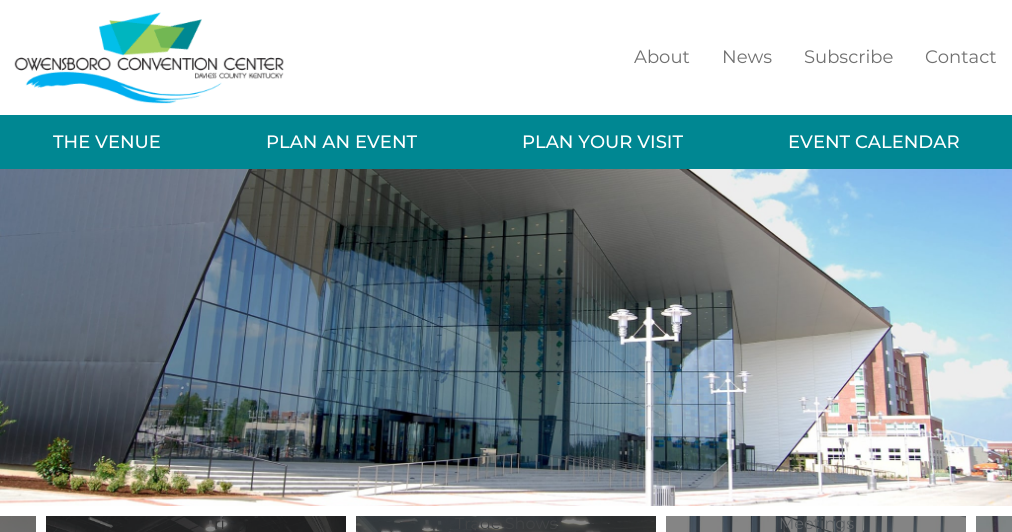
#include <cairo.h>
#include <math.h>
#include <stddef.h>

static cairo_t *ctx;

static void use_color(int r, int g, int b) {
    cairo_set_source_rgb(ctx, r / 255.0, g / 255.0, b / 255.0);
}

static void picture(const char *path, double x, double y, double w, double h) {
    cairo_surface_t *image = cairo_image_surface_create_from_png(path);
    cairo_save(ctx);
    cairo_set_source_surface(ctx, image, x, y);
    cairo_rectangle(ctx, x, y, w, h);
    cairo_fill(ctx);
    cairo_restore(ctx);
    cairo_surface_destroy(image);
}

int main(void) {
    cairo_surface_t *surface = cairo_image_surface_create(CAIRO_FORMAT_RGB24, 1012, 532);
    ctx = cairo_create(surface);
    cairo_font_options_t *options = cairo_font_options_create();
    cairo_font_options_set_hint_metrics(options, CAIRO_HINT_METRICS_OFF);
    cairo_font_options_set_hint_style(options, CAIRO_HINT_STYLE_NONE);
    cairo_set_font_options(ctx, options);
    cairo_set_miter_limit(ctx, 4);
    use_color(255, 255, 255);
    cairo_paint(ctx);
    picture("img1.png", 14, 12, 270, 92);
    cairo_select_font_face(ctx, "Montserrat", CAIRO_FONT_SLANT_NORMAL, CAIRO_FONT_WEIGHT_NORMAL);
    cairo_set_font_size(ctx, 18);
    use_color(112, 112, 112);
    cairo_move_to(ctx, 634, 63);
    cairo_show_text(ctx, "About");
    cairo_move_to(ctx, 722, 63);
    cairo_show_text(ctx, "News");
    cairo_move_to(ctx, 804, 63);
    cairo_show_text(ctx, "Subscribe");
    cairo_move_to(ctx, 925, 63);
    cairo_show_text(ctx, "Contact");
    use_color(0, 135, 146);
    cairo_rectangle(ctx, 0, 115, 1012, 54);
    cairo_fill(ctx);
    cairo_select_font_face(ctx, "Montserrat Medium", CAIRO_FONT_SLANT_NORMAL, CAIRO_FONT_WEIGHT_NORMAL);
    use_color(255, 255, 255);
    cairo_move_to(ctx, 53, 148);
    cairo_show_text(ctx, "THE VENUE");
    cairo_move_to(ctx, 266, 148);
    cairo_show_text(ctx, "PLAN AN EVENT");
    cairo_move_to(ctx, 522, 148);
    cairo_show_text(ctx, "PLAN YOUR VISIT");
    cairo_move_to(ctx, 788, 148);
    cairo_show_text(ctx, "EVENT CALENDAR");
    picture("img2.png", 0, 169, 1012, 337);
    use_color(133, 133, 133);
    cairo_rectangle(ctx, 666, 516, 21, 16);
    cairo_fill(ctx);
    picture("img3.png", 0, 516, 36, 16);
    picture("img4.png", 46, 516, 300, 16);
    cairo_select_font_face(ctx, "Montserrat", CAIRO_FONT_SLANT_NORMAL, CAIRO_FONT_WEIGHT_NORMAL);
    cairo_set_font_size(ctx, 16);
    use_color(45, 45, 46);
    cairo_move_to(ctx, 214, 529);
    cairo_show_text(ctx, "ri");
    picture("img5.png", 356, 516, 300, 16);
    use_color(65, 67, 69);
    cairo_move_to(ctx, 455, 529);
    cairo_show_text(ctx, "Trade Shows");
    picture("img6.png", 687, 516, 279, 16);
    use_color(95, 98, 101);
    cairo_move_to(ctx, 779, 529);
    cairo_show_text(ctx, "Meetings");
    picture("img7.png", 976, 516, 36, 16);
    cairo_surface_write_to_png(surface, "result.png");
    cairo_font_options_destroy(options);
    cairo_destroy(ctx);
    cairo_surface_destroy(surface);
    return 0;
}
